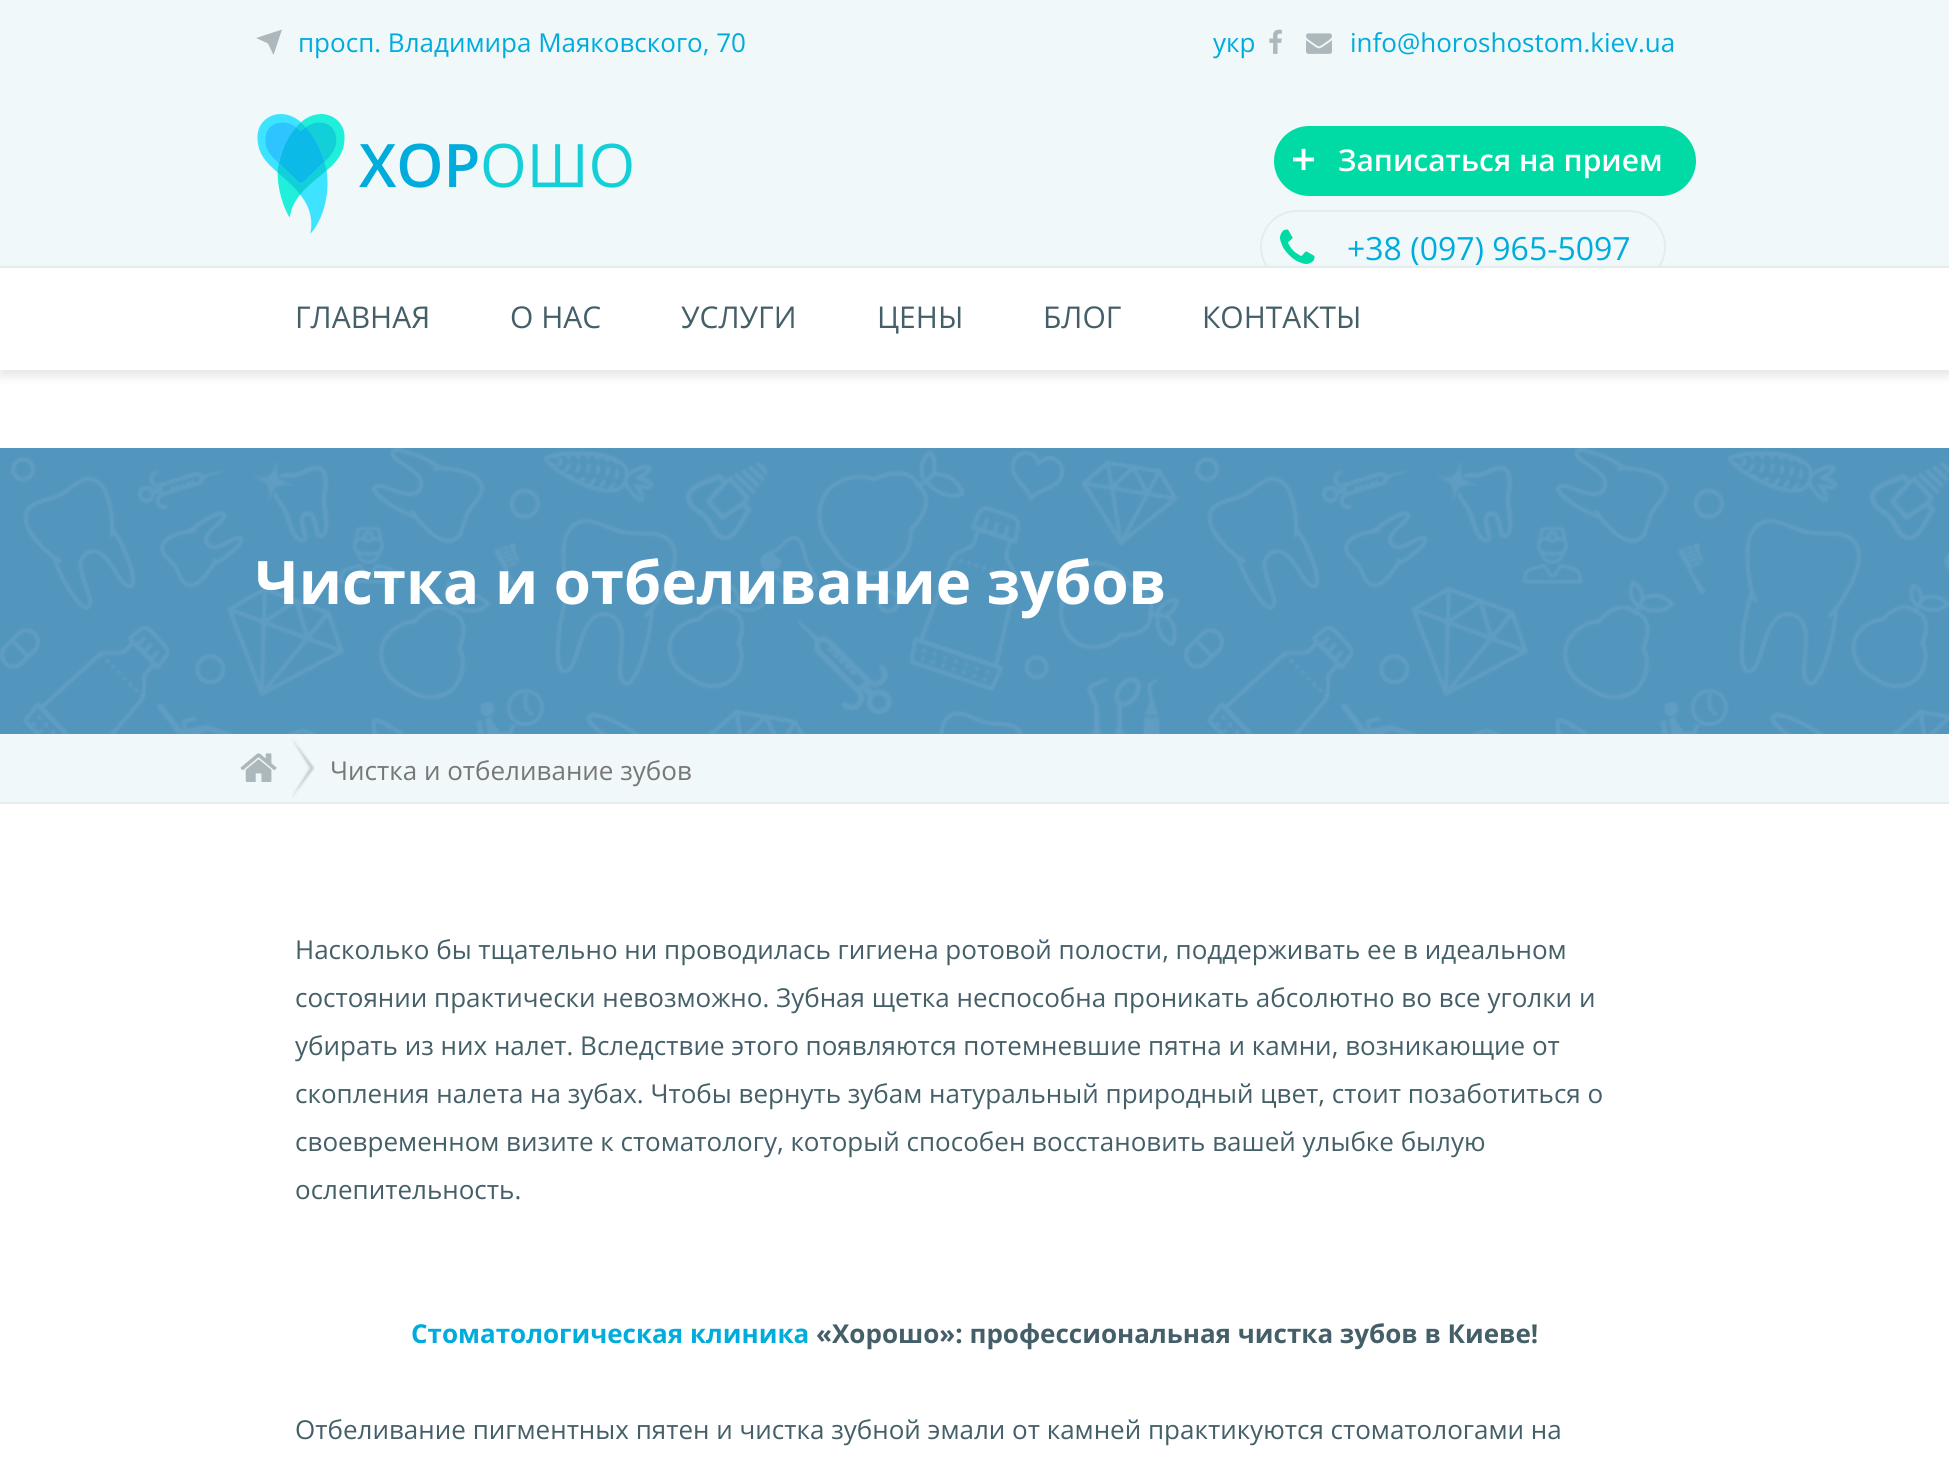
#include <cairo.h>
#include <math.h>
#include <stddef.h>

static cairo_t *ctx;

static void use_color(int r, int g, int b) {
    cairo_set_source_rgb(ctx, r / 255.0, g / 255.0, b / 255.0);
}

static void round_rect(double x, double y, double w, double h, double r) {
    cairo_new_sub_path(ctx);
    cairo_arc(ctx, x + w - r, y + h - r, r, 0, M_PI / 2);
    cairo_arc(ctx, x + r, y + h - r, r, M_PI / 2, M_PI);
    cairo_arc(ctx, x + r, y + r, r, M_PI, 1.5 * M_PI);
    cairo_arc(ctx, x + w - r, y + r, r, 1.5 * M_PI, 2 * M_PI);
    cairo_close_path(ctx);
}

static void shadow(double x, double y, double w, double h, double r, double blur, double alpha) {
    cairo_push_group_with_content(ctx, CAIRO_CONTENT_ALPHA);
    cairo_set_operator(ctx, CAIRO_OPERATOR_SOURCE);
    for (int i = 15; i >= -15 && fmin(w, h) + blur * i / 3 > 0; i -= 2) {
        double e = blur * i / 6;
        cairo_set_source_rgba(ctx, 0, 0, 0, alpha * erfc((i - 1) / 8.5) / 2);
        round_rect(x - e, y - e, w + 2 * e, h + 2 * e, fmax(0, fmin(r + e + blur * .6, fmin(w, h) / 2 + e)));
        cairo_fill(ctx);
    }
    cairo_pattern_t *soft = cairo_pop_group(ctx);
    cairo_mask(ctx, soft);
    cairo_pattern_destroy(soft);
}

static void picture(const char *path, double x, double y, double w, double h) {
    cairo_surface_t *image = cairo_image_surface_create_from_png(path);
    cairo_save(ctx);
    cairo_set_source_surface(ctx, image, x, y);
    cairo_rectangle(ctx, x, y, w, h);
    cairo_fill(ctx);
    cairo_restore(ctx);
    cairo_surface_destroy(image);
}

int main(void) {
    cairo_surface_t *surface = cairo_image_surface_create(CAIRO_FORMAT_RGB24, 1949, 1467);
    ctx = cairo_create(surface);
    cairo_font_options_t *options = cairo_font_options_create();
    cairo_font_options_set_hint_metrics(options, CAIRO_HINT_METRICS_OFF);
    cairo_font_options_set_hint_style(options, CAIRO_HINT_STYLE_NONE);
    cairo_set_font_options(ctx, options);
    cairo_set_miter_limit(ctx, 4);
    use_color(255, 255, 255);
    cairo_paint(ctx);
    use_color(241, 248, 249);
    cairo_rectangle(ctx, 0, 0, 1949, 266);
    cairo_fill(ctx);
    cairo_select_font_face(ctx, "Open Sans", CAIRO_FONT_SLANT_NORMAL, CAIRO_FONT_WEIGHT_NORMAL);
    cairo_set_font_size(ctx, 26);
    use_color(0, 172, 219);
    cairo_move_to(ctx, 298, 52);
    cairo_show_text(ctx, "просп. Владимира Маяковского, 70");
    use_color(172, 184, 188);
    cairo_new_path(ctx);
    cairo_move_to(ctx, 256, 38);
    cairo_line_to(ctx, 282, 29.5);
    cairo_line_to(ctx, 273.5, 55);
    cairo_line_to(ctx, 268, 43.5);
    cairo_close_path(ctx);
    cairo_fill(ctx);
    use_color(0, 172, 219);
    cairo_move_to(ctx, 1213, 52);
    cairo_show_text(ctx, "укр");
    picture("img1.png", 1269, 29, 13, 25);
    picture("img2.png", 1306, 33, 26, 21);
    cairo_move_to(ctx, 1350, 52);
    cairo_show_text(ctx, "info@horoshostom.kiev.ua");
    picture("img3.png", 257, 114, 88, 120);
    cairo_select_font_face(ctx, "Open Sans SemiBold", CAIRO_FONT_SLANT_NORMAL, CAIRO_FONT_WEIGHT_NORMAL);
    cairo_set_font_size(ctx, 60);
    cairo_move_to(ctx, 359, 187);
    cairo_show_text(ctx, "ХОР");
    cairo_select_font_face(ctx, "Open Sans", CAIRO_FONT_SLANT_NORMAL, CAIRO_FONT_WEIGHT_NORMAL);
    use_color(19, 207, 215);
    cairo_move_to(ctx, 480, 187);
    cairo_show_text(ctx, "ОШО");
    use_color(0, 219, 165);
    round_rect(1274, 126, 422, 70, 35);
    cairo_fill(ctx);
    cairo_select_font_face(ctx, "Open Sans SemiBold", CAIRO_FONT_SLANT_NORMAL, CAIRO_FONT_WEIGHT_NORMAL);
    cairo_set_font_size(ctx, 44);
    use_color(255, 255, 255);
    cairo_move_to(ctx, 1291, 175);
    cairo_show_text(ctx, "+");
    cairo_set_font_size(ctx, 30);
    cairo_move_to(ctx, 1338, 171);
    cairo_show_text(ctx, "Записаться на прием");
    round_rect(1261, 211, 404, 72, 36);
    use_color(228, 237, 238);
    cairo_stroke(ctx);
    picture("img4.png", 1280, 229, 35, 35);
    cairo_select_font_face(ctx, "Open Sans", CAIRO_FONT_SLANT_NORMAL, CAIRO_FONT_WEIGHT_NORMAL);
    cairo_set_font_size(ctx, 32);
    use_color(0, 172, 219);
    cairo_move_to(ctx, 1347, 260);
    cairo_show_text(ctx, "+38 (097) 965-5097");
    use_color(0, 0, 0);
    shadow(0, 272, 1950, 104, 0, 5, 0.1);
    use_color(255, 255, 255);
    cairo_rectangle(ctx, 0, 268, 1949, 102);
    cairo_fill(ctx);
    use_color(228, 237, 238);
    cairo_rectangle(ctx, 0, 266, 1949, 2);
    cairo_fill(ctx);
    cairo_set_font_size(ctx, 30);
    use_color(69, 95, 104);
    cairo_move_to(ctx, 295, 328);
    cairo_show_text(ctx, "ГЛАВНАЯ");
    cairo_move_to(ctx, 510, 328);
    cairo_show_text(ctx, "О НАС");
    cairo_move_to(ctx, 681, 328);
    cairo_show_text(ctx, "УСЛУГИ");
    cairo_move_to(ctx, 877, 328);
    cairo_show_text(ctx, "ЦЕНЫ");
    cairo_move_to(ctx, 1043, 328);
    cairo_show_text(ctx, "БЛОГ");
    cairo_move_to(ctx, 1202, 328);
    cairo_show_text(ctx, "КОНТАКТЫ");
    picture("img5.png", 0, 448, 1949, 286);
    cairo_select_font_face(ctx, "Open Sans", CAIRO_FONT_SLANT_NORMAL, CAIRO_FONT_WEIGHT_BOLD);
    cairo_set_font_size(ctx, 60);
    use_color(255, 255, 255);
    cairo_move_to(ctx, 255, 604);
    cairo_show_text(ctx, "Чистка и отбеливание зубов");
    use_color(241, 248, 249);
    cairo_rectangle(ctx, 0, 734, 1949, 68);
    cairo_fill(ctx);
    use_color(228, 237, 238);
    cairo_rectangle(ctx, 0, 802, 1949, 2);
    cairo_fill(ctx);
    picture("img6.png", 240, 753, 37, 29);
    picture("img7.png", 291, 738, 23, 60);
    cairo_select_font_face(ctx, "Open Sans", CAIRO_FONT_SLANT_NORMAL, CAIRO_FONT_WEIGHT_NORMAL);
    cairo_set_font_size(ctx, 26);
    use_color(119, 119, 119);
    cairo_move_to(ctx, 330, 780);
    cairo_show_text(ctx, "Чистка и отбеливание зубов");
    use_color(69, 95, 104);
    cairo_move_to(ctx, 295, 959);
    cairo_show_text(ctx, "Насколько бы тщательно ни проводилась гигиена ротовой полости, поддерживать ее в идеальном");
    cairo_move_to(ctx, 295, 1007);
    cairo_show_text(ctx, "состоянии практически невозможно. Зубная щетка неспособна проникать абсолютно во все уголки и");
    cairo_move_to(ctx, 295, 1055);
    cairo_show_text(ctx, "убирать из них налет. Вследствие этого появляются потемневшие пятна и камни, возникающие от");
    cairo_move_to(ctx, 295, 1103);
    cairo_show_text(ctx, "скопления налета на зубах. Чтобы вернуть зубам натуральный природный цвет, стоит позаботиться о");
    cairo_move_to(ctx, 295, 1151);
    cairo_show_text(ctx, "своевременном визите к стоматологу, который способен восстановить вашей улыбке былую");
    cairo_move_to(ctx, 295, 1199);
    cairo_show_text(ctx, "ослепительность.");
    cairo_select_font_face(ctx, "Open Sans", CAIRO_FONT_SLANT_NORMAL, CAIRO_FONT_WEIGHT_BOLD);
    use_color(0, 172, 219);
    cairo_move_to(ctx, 411, 1343);
    cairo_show_text(ctx, "Стоматологическая клиника");
    use_color(69, 95, 104);
    cairo_move_to(ctx, 816, 1343);
    cairo_show_text(ctx, "«Хорошо»: профессиональная чистка зубов в Киеве!");
    cairo_select_font_face(ctx, "Open Sans", CAIRO_FONT_SLANT_NORMAL, CAIRO_FONT_WEIGHT_NORMAL);
    cairo_move_to(ctx, 295, 1439);
    cairo_show_text(ctx, "Отбеливание пигментных пятен и чистка зубной эмали от камней практикуются стоматологами на");
    cairo_surface_write_to_png(surface, "result.png");
    cairo_font_options_destroy(options);
    cairo_destroy(ctx);
    cairo_surface_destroy(surface);
    return 0;
}
